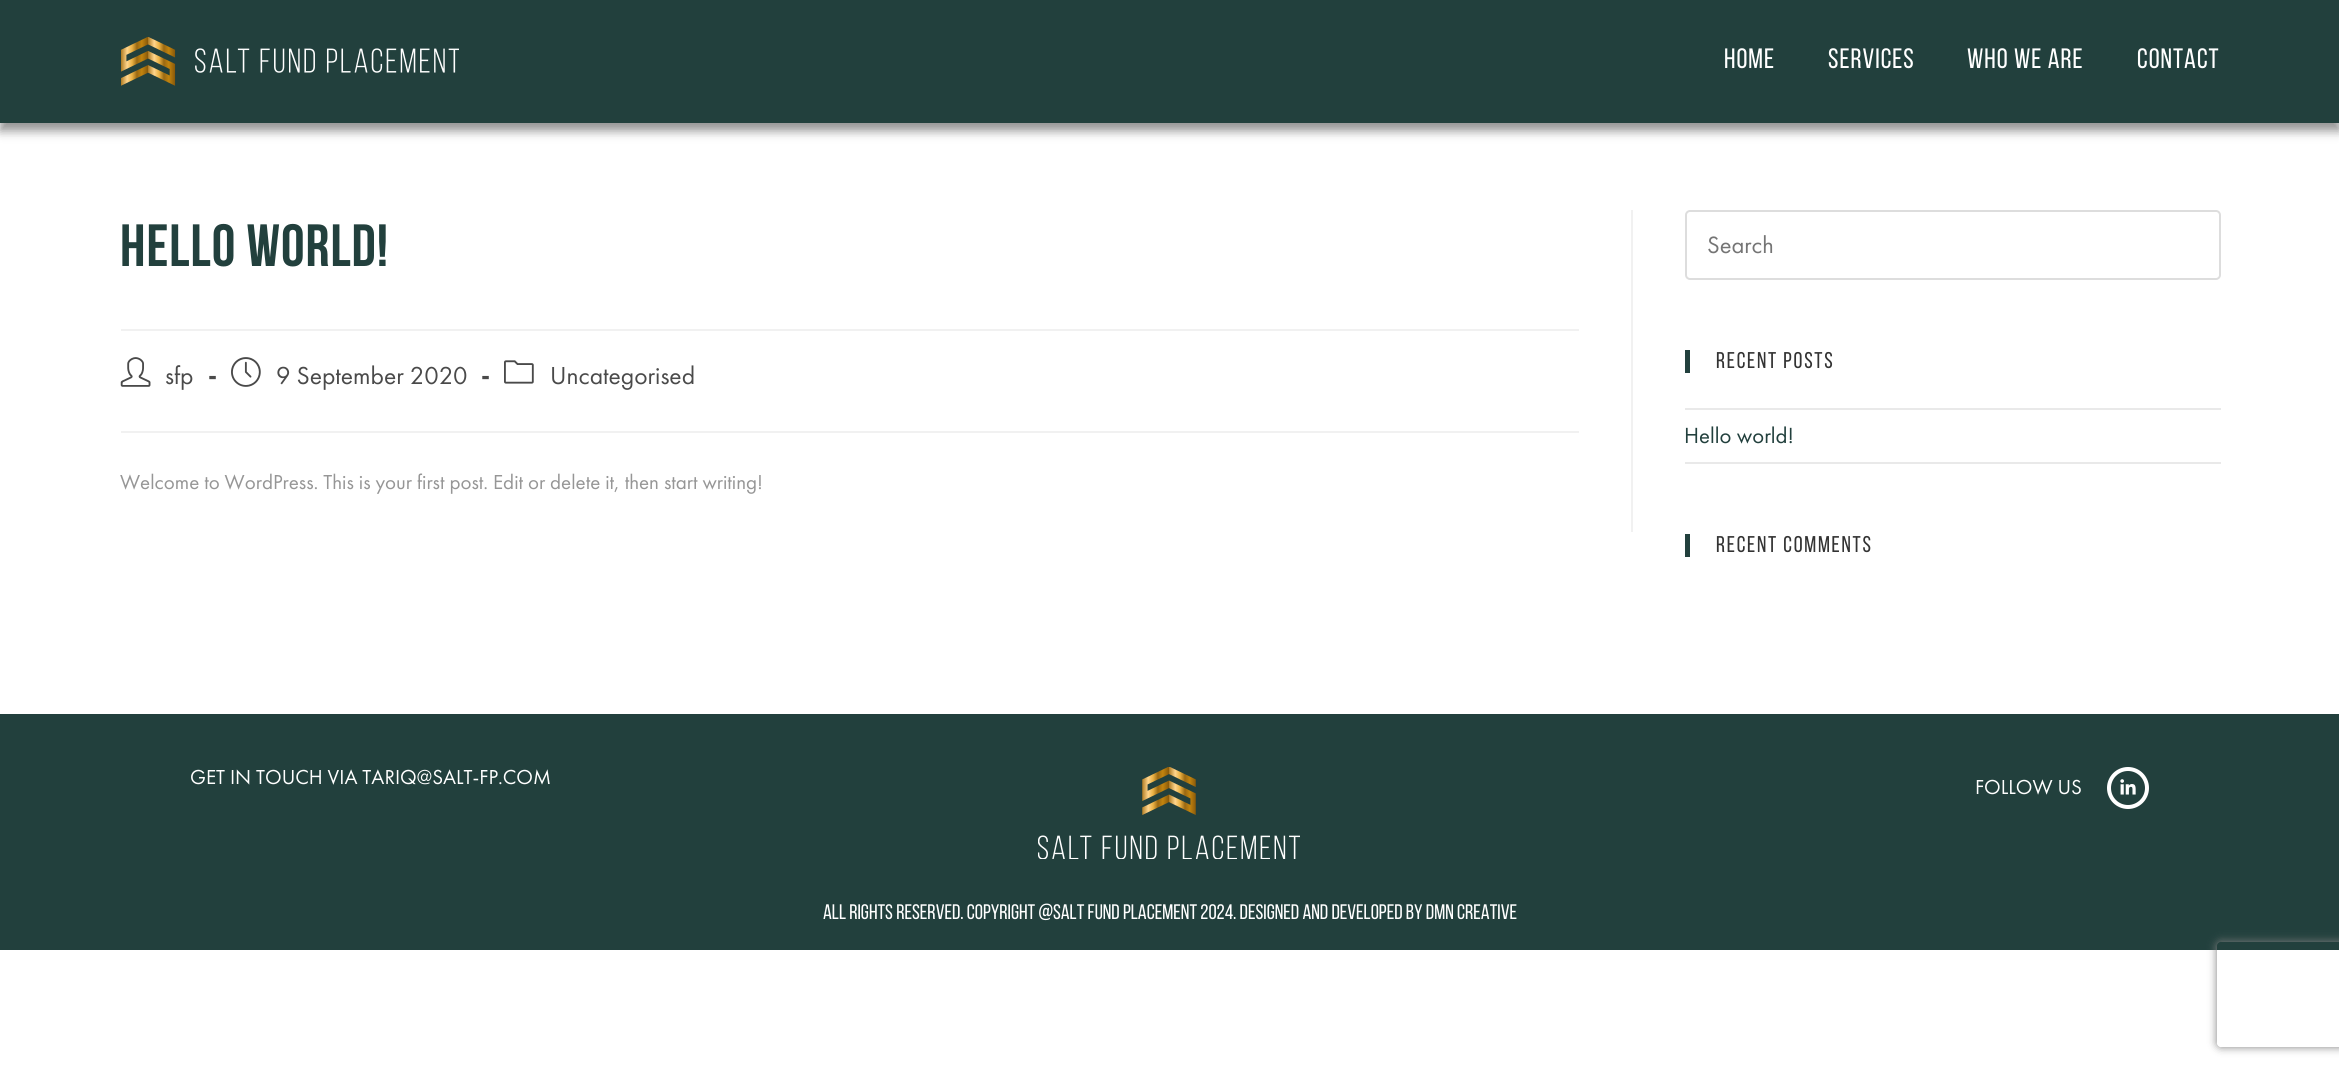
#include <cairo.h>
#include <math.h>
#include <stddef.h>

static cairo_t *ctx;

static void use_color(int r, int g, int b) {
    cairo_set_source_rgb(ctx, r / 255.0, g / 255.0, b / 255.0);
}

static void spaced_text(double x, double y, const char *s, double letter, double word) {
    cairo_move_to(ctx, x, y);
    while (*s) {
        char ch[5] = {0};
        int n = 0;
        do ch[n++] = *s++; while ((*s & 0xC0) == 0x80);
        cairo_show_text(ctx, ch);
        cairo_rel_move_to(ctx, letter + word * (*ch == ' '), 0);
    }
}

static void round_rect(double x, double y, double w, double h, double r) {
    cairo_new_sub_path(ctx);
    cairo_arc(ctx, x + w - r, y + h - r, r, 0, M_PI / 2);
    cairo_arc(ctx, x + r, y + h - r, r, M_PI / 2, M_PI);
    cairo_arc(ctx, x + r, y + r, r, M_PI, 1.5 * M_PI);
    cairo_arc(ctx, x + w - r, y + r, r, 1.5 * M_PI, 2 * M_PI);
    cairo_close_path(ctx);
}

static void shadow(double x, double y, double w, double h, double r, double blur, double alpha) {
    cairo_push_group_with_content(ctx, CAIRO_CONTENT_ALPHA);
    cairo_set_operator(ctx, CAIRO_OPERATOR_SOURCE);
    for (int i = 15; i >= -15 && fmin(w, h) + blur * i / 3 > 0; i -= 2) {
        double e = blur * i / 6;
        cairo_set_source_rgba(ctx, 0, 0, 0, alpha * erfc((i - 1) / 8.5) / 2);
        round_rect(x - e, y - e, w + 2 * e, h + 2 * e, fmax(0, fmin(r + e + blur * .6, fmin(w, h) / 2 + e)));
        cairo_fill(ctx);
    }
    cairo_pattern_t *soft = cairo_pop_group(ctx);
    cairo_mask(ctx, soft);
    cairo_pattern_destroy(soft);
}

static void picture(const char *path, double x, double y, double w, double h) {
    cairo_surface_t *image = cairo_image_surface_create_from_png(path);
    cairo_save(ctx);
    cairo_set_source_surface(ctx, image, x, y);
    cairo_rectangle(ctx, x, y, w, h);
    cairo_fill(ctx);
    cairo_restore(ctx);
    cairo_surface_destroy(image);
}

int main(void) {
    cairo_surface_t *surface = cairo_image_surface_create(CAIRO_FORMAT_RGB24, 2339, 1071);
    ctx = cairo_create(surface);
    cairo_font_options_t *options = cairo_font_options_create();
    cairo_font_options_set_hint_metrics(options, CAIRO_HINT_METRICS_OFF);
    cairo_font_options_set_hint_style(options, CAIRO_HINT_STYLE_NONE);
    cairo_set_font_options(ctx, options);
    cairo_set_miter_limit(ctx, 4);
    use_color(255, 255, 255);
    cairo_paint(ctx);
    use_color(0, 0, 0);
    shadow(0, 9, 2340, 122, 0, 5, 0.42);
    use_color(34, 64, 61);
    cairo_rectangle(ctx, 0, 0, 2339, 123);
    cairo_fill(ctx);
    picture("img1.png", 121, 37, 338, 49);
    cairo_select_font_face(ctx, "Bebas Neue", CAIRO_FONT_SLANT_NORMAL, CAIRO_FONT_WEIGHT_NORMAL);
    cairo_set_font_size(ctx, 28);
    use_color(255, 255, 255);
    spaced_text(1724, 68, "Home", 1, 0);
    spaced_text(1828, 68, "Services", 1, 0);
    spaced_text(1967, 68, "Who We Are", 1, 0);
    spaced_text(2137, 68, "Contact", 1, 0);
    use_color(241, 241, 241);
    cairo_rectangle(ctx, 1631, 210, 2, 322);
    cairo_fill(ctx);
    cairo_rectangle(ctx, 121, 329, 1458, 2);
    cairo_fill(ctx);
    cairo_select_font_face(ctx, "Bebas Neue", CAIRO_FONT_SLANT_NORMAL, CAIRO_FONT_WEIGHT_BOLD);
    cairo_set_font_size(ctx, 59.5);
    use_color(34, 64, 61);
    spaced_text(120, 266, "HELLO WORLD!", 1, 0);
    use_color(241, 241, 241);
    cairo_rectangle(ctx, 121, 431, 1458, 2);
    cairo_fill(ctx);
    picture("img2.png", 120, 357, 31, 30);
    cairo_select_font_face(ctx, "Futura PT", CAIRO_FONT_SLANT_NORMAL, CAIRO_FONT_WEIGHT_NORMAL);
    cairo_set_font_size(ctx, 25.5);
    use_color(74, 74, 74);
    cairo_move_to(ctx, 165, 384);
    cairo_show_text(ctx, "sfp");
    cairo_select_font_face(ctx, "Futura PT Black", CAIRO_FONT_SLANT_NORMAL, CAIRO_FONT_WEIGHT_NORMAL);
    cairo_move_to(ctx, 208, 384);
    cairo_show_text(ctx, "-");
    picture("img3.png", 231, 357, 30, 30);
    cairo_select_font_face(ctx, "Futura PT", CAIRO_FONT_SLANT_NORMAL, CAIRO_FONT_WEIGHT_NORMAL);
    cairo_move_to(ctx, 276, 384);
    cairo_show_text(ctx, "9 September 2020");
    cairo_select_font_face(ctx, "Futura PT Black", CAIRO_FONT_SLANT_NORMAL, CAIRO_FONT_WEIGHT_NORMAL);
    cairo_move_to(ctx, 481, 384);
    cairo_show_text(ctx, "-");
    picture("img4.png", 504, 360, 30, 24);
    cairo_select_font_face(ctx, "Futura PT", CAIRO_FONT_SLANT_NORMAL, CAIRO_FONT_WEIGHT_NORMAL);
    cairo_move_to(ctx, 550, 384);
    cairo_show_text(ctx, "Uncategorised");
    cairo_set_font_size(ctx, 21);
    use_color(150, 150, 150);
    cairo_move_to(ctx, 120, 489);
    cairo_show_text(ctx, "Welcome to WordPress. This is your first post. Edit or delete it, then start writing!");
    round_rect(1686, 211, 534, 68, 4);
    use_color(221, 221, 221);
    cairo_stroke(ctx);
    cairo_set_font_size(ctx, 24.5);
    use_color(117, 117, 117);
    cairo_move_to(ctx, 1707, 253);
    cairo_show_text(ctx, "Search");
    use_color(34, 64, 61);
    cairo_rectangle(ctx, 1685, 350, 5, 23);
    cairo_fill(ctx);
    cairo_select_font_face(ctx, "Bebas Neue", CAIRO_FONT_SLANT_NORMAL, CAIRO_FONT_WEIGHT_NORMAL);
    cairo_set_font_size(ctx, 22.75);
    use_color(51, 51, 51);
    spaced_text(1716, 368, "Recent Posts", 1.75, 0);
    use_color(233, 233, 233);
    cairo_rectangle(ctx, 1685, 408, 536, 2);
    cairo_fill(ctx);
    cairo_rectangle(ctx, 1685, 462, 536, 2);
    cairo_fill(ctx);
    cairo_select_font_face(ctx, "Futura PT", CAIRO_FONT_SLANT_NORMAL, CAIRO_FONT_WEIGHT_NORMAL);
    use_color(34, 64, 61);
    cairo_move_to(ctx, 1684, 443);
    cairo_show_text(ctx, "Hello world!");
    cairo_rectangle(ctx, 1685, 534, 5, 23);
    cairo_fill(ctx);
    cairo_select_font_face(ctx, "Bebas Neue", CAIRO_FONT_SLANT_NORMAL, CAIRO_FONT_WEIGHT_NORMAL);
    use_color(51, 51, 51);
    spaced_text(1716, 552, "Recent Comments", 1.75, 0);
    use_color(34, 64, 61);
    cairo_rectangle(ctx, 0, 714, 2339, 236);
    cairo_fill(ctx);
    cairo_select_font_face(ctx, "Futura PT", CAIRO_FONT_SLANT_NORMAL, CAIRO_FONT_WEIGHT_NORMAL);
    cairo_set_font_size(ctx, 21);
    use_color(255, 255, 255);
    cairo_move_to(ctx, 190, 784);
    cairo_show_text(ctx, "GET IN TOUCH VIA TARIQ@SALT-FP.COM");
    picture("img5.png", 1038, 767, 262, 92);
    cairo_move_to(ctx, 1975, 794);
    cairo_show_text(ctx, "FOLLOW US");
    cairo_new_path(ctx);
    cairo_arc(ctx, 2128, 788, 19, 0, 2 * M_PI);
    cairo_set_line_width(ctx, 4);
    cairo_stroke(ctx);
    picture("img6.png", 2120, 779, 16, 16);
    cairo_select_font_face(ctx, "Bebas Neue", CAIRO_FONT_SLANT_NORMAL, CAIRO_FONT_WEIGHT_NORMAL);
    cairo_move_to(ctx, 823, 919);
    cairo_show_text(ctx, "ALL RIGHTS RESERVED. COPYRIGHT @SALT FUND PLACEMENT 2024. DESIGNED AND DEVELOPED BY DMN CREATIVE");
    cairo_save(ctx);
    cairo_set_fill_rule(ctx, CAIRO_FILL_RULE_EVEN_ODD);
    cairo_new_path(ctx);
    cairo_move_to(ctx, 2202, 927);
    cairo_line_to(ctx, 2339, 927);
    cairo_line_to(ctx, 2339, 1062);
    cairo_line_to(ctx, 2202, 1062);
    cairo_close_path(ctx);
    cairo_move_to(ctx, 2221, 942);
    cairo_line_to(ctx, 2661, 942);
    cairo_curve_to(ctx, 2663, 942, 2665, 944, 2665, 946);
    cairo_line_to(ctx, 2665, 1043);
    cairo_curve_to(ctx, 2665, 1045, 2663, 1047, 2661, 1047);
    cairo_line_to(ctx, 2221, 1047);
    cairo_curve_to(ctx, 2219, 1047, 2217, 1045, 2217, 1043);
    cairo_line_to(ctx, 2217, 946);
    cairo_curve_to(ctx, 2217, 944, 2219, 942, 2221, 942);
    cairo_close_path(ctx);
    cairo_clip(ctx);
    use_color(128, 128, 128);
    shadow(2217, 942, 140, 105, 4, 4.5, 1);
    cairo_restore(ctx);
    cairo_surface_write_to_png(surface, "result.png");
    cairo_font_options_destroy(options);
    cairo_destroy(ctx);
    cairo_surface_destroy(surface);
    return 0;
}
